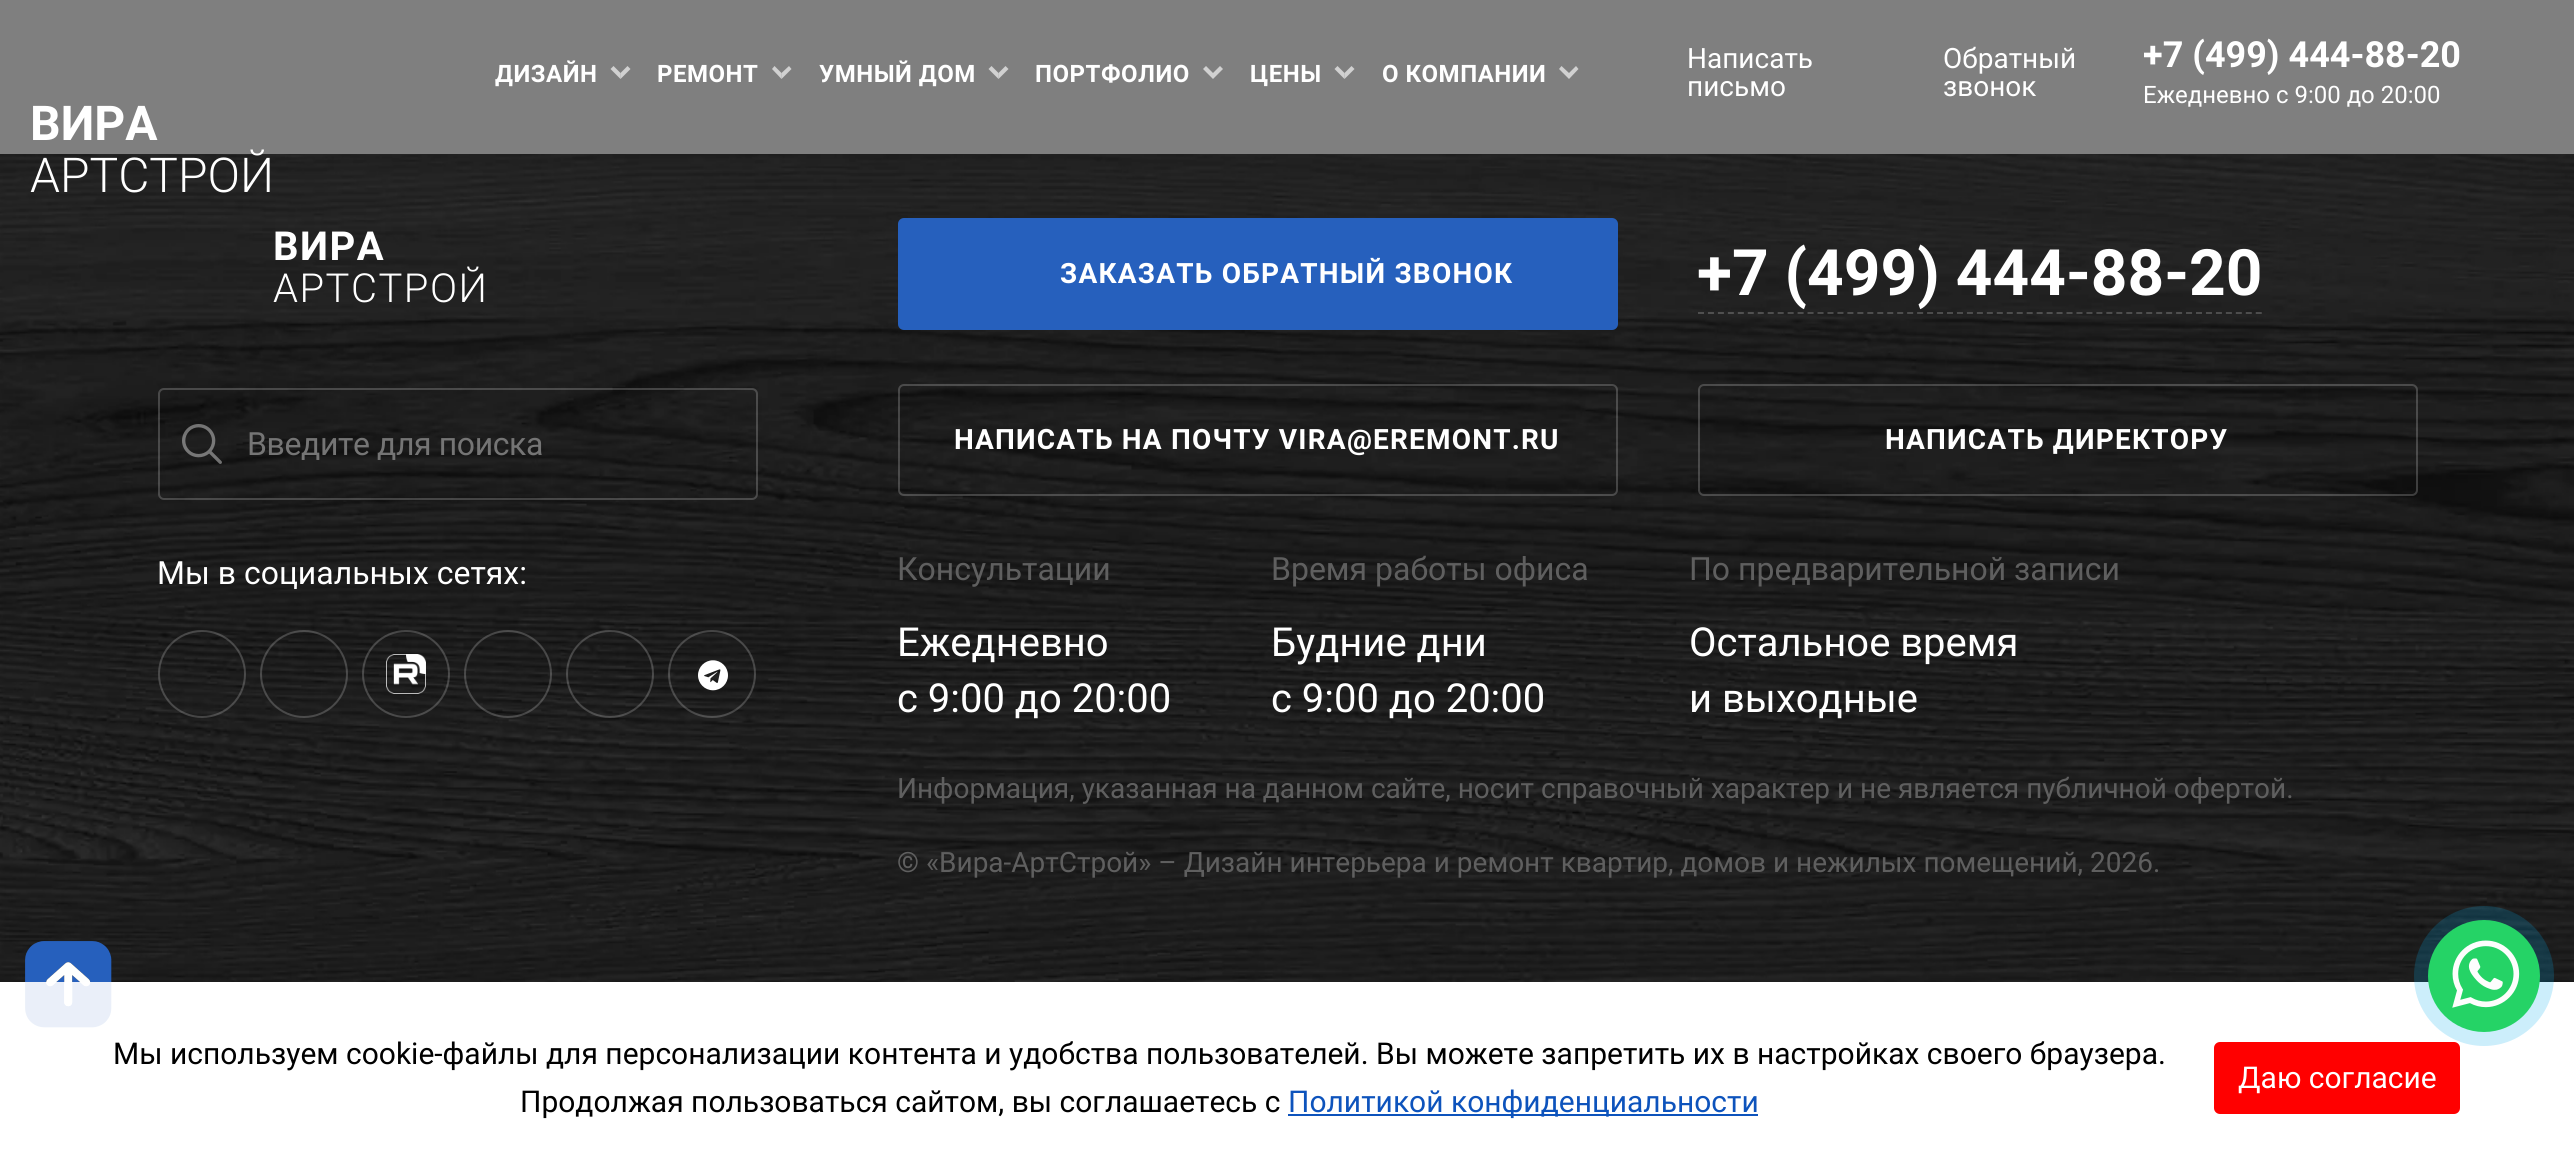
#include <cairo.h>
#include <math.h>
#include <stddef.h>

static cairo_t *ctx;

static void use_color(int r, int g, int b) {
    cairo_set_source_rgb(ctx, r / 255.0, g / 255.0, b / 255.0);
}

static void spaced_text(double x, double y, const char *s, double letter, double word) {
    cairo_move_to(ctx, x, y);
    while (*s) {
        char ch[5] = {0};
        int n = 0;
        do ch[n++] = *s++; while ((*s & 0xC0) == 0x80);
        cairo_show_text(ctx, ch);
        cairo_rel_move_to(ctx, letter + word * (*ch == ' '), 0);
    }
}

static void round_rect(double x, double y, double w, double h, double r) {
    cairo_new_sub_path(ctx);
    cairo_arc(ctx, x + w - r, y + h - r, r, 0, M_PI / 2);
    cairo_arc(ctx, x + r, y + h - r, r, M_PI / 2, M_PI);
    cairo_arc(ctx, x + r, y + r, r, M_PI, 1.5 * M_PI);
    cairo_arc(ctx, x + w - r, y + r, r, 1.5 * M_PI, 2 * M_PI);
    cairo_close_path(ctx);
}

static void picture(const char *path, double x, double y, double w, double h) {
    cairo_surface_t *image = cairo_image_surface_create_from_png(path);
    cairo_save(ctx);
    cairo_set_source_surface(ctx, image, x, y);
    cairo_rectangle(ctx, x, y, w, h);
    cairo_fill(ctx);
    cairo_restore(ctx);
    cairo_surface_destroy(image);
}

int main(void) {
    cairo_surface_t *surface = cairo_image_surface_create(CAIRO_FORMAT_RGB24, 2574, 1166);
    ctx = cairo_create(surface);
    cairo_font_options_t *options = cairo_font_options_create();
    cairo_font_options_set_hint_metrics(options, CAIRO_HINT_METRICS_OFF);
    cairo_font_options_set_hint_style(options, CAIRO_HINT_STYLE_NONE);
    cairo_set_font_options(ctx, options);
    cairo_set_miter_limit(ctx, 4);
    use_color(255, 255, 255);
    cairo_paint(ctx);
    use_color(127, 127, 127);
    cairo_rectangle(ctx, 0, 0, 2574, 154);
    cairo_fill(ctx);
    cairo_select_font_face(ctx, "Roboto", CAIRO_FONT_SLANT_NORMAL, CAIRO_FONT_WEIGHT_BOLD);
    cairo_set_font_size(ctx, 24);
    use_color(255, 255, 255);
    spaced_text(495, 82, "ДИЗАЙН", 0.5, 0);
    use_color(209, 209, 209);
    cairo_new_path(ctx);
    cairo_move_to(ctx, 630.5, 69);
    cairo_line_to(ctx, 620.5, 79);
    cairo_line_to(ctx, 620.5, 73);
    cairo_line_to(ctx, 627.5, 66);
    cairo_close_path(ctx);
    cairo_fill(ctx);
    cairo_set_source_rgba(ctx, 1, 1, 1, 0.64);
    cairo_new_path(ctx);
    cairo_move_to(ctx, 620.5, 79);
    cairo_line_to(ctx, 610.5, 69);
    cairo_line_to(ctx, 613.5, 66);
    cairo_line_to(ctx, 620.5, 73);
    cairo_close_path(ctx);
    cairo_fill(ctx);
    use_color(255, 255, 255);
    spaced_text(657, 82, "РЕМОНТ", 0.5, 0);
    use_color(209, 209, 209);
    cairo_new_path(ctx);
    cairo_move_to(ctx, 791.5, 69);
    cairo_line_to(ctx, 781.5, 79);
    cairo_line_to(ctx, 781.5, 73);
    cairo_line_to(ctx, 789, 66);
    cairo_close_path(ctx);
    cairo_fill(ctx);
    cairo_set_source_rgba(ctx, 1, 1, 1, 0.64);
    cairo_new_path(ctx);
    cairo_move_to(ctx, 781.5, 79);
    cairo_line_to(ctx, 772, 69);
    cairo_line_to(ctx, 774.5, 66);
    cairo_line_to(ctx, 781.5, 73);
    cairo_close_path(ctx);
    cairo_fill(ctx);
    use_color(255, 255, 255);
    spaced_text(819, 82, "УМНЫЙ ДОМ", 0.5, 0);
    use_color(209, 209, 209);
    cairo_new_path(ctx);
    cairo_move_to(ctx, 1008.5, 69);
    cairo_line_to(ctx, 998.5, 79);
    cairo_line_to(ctx, 998.5, 73);
    cairo_line_to(ctx, 1005.5, 66);
    cairo_close_path(ctx);
    cairo_fill(ctx);
    cairo_set_source_rgba(ctx, 1, 1, 1, 0.64);
    cairo_new_path(ctx);
    cairo_move_to(ctx, 998.5, 79);
    cairo_line_to(ctx, 988.5, 69);
    cairo_line_to(ctx, 991.5, 66);
    cairo_line_to(ctx, 998.5, 73);
    cairo_close_path(ctx);
    cairo_fill(ctx);
    use_color(255, 255, 255);
    spaced_text(1035, 82, "ПОРТФОЛИО", 0.5, 0);
    use_color(209, 209, 209);
    cairo_new_path(ctx);
    cairo_move_to(ctx, 1223, 69);
    cairo_line_to(ctx, 1213, 79);
    cairo_line_to(ctx, 1213, 73);
    cairo_line_to(ctx, 1220, 66);
    cairo_close_path(ctx);
    cairo_move_to(ctx, 1213, 79);
    cairo_line_to(ctx, 1203, 69);
    cairo_line_to(ctx, 1206, 66);
    cairo_line_to(ctx, 1213, 73);
    cairo_close_path(ctx);
    cairo_fill(ctx);
    use_color(255, 255, 255);
    spaced_text(1250, 82, "ЦЕНЫ", 0.5, 0);
    use_color(209, 209, 209);
    cairo_new_path(ctx);
    cairo_move_to(ctx, 1354.5, 69);
    cairo_line_to(ctx, 1344.5, 79);
    cairo_line_to(ctx, 1344.5, 73);
    cairo_line_to(ctx, 1351.5, 66);
    cairo_close_path(ctx);
    cairo_fill(ctx);
    cairo_set_source_rgba(ctx, 1, 1, 1, 0.64);
    cairo_new_path(ctx);
    cairo_move_to(ctx, 1344.5, 79);
    cairo_line_to(ctx, 1334.5, 69);
    cairo_line_to(ctx, 1337.5, 66);
    cairo_line_to(ctx, 1344.5, 73);
    cairo_close_path(ctx);
    cairo_fill(ctx);
    use_color(255, 255, 255);
    spaced_text(1382, 82, "О КОМПАНИИ", 0.5, 0);
    use_color(209, 209, 209);
    cairo_new_path(ctx);
    cairo_move_to(ctx, 1578.5, 69);
    cairo_line_to(ctx, 1569, 79);
    cairo_line_to(ctx, 1569, 73);
    cairo_line_to(ctx, 1576, 66);
    cairo_close_path(ctx);
    cairo_move_to(ctx, 1569, 79);
    cairo_line_to(ctx, 1559, 69);
    cairo_line_to(ctx, 1561.5, 66);
    cairo_line_to(ctx, 1569, 73);
    cairo_close_path(ctx);
    cairo_fill(ctx);
    cairo_select_font_face(ctx, "Roboto", CAIRO_FONT_SLANT_NORMAL, CAIRO_FONT_WEIGHT_NORMAL);
    cairo_set_font_size(ctx, 28);
    use_color(255, 255, 255);
    cairo_move_to(ctx, 1687, 68);
    cairo_show_text(ctx, "Написать");
    cairo_move_to(ctx, 1687, 96);
    cairo_show_text(ctx, "письмо");
    cairo_move_to(ctx, 1943, 68);
    cairo_show_text(ctx, "Обратный");
    cairo_move_to(ctx, 1943, 96);
    cairo_show_text(ctx, "звонок");
    cairo_select_font_face(ctx, "Roboto", CAIRO_FONT_SLANT_NORMAL, CAIRO_FONT_WEIGHT_BOLD);
    cairo_set_font_size(ctx, 36);
    cairo_move_to(ctx, 2143, 67);
    cairo_show_text(ctx, "+7 (499) 444-88-20");
    cairo_select_font_face(ctx, "Roboto", CAIRO_FONT_SLANT_NORMAL, CAIRO_FONT_WEIGHT_NORMAL);
    cairo_set_font_size(ctx, 24);
    cairo_move_to(ctx, 2143, 103);
    cairo_show_text(ctx, "Ежедневно с 9:00 до 20:00");
    cairo_select_font_face(ctx, "Roboto", CAIRO_FONT_SLANT_NORMAL, CAIRO_FONT_WEIGHT_BOLD);
    cairo_set_font_size(ctx, 48);
    cairo_move_to(ctx, 30, 140);
    cairo_show_text(ctx, "ВИРА");
    picture("img1.png", 0, 154, 2574, 828);
    cairo_select_font_face(ctx, "Roboto Light", CAIRO_FONT_SLANT_NORMAL, CAIRO_FONT_WEIGHT_NORMAL);
    cairo_move_to(ctx, 30, 192);
    cairo_show_text(ctx, "АРТСТРОЙ");
    cairo_select_font_face(ctx, "Roboto", CAIRO_FONT_SLANT_NORMAL, CAIRO_FONT_WEIGHT_BOLD);
    cairo_set_font_size(ctx, 40);
    spaced_text(273, 260, "ВИРА", 1.5, 0);
    cairo_select_font_face(ctx, "Roboto Light", CAIRO_FONT_SLANT_NORMAL, CAIRO_FONT_WEIGHT_NORMAL);
    spaced_text(273, 302, "АРТСТРОЙ", 1.5, 0);
    round_rect(159, 389, 598, 110, 5);
    cairo_set_source_rgba(ctx, 1, 1, 1, 0.2);
    cairo_stroke(ctx);
    picture("img2.png", 182, 424, 40, 40);
    cairo_select_font_face(ctx, "Roboto", CAIRO_FONT_SLANT_NORMAL, CAIRO_FONT_WEIGHT_NORMAL);
    cairo_set_font_size(ctx, 32);
    use_color(117, 117, 117);
    spaced_text(247, 455, "Введите для поиска", -0.4, 0);
    use_color(255, 255, 255);
    cairo_move_to(ctx, 157, 584);
    cairo_show_text(ctx, "Мы в социальных сетях:");
    cairo_new_path(ctx);
    cairo_arc(ctx, 202, 674, 43, 0, 2 * M_PI);
    cairo_set_source_rgba(ctx, 1, 1, 1, 0.2);
    cairo_stroke(ctx);
    cairo_arc(ctx, 304, 674, 43, 0, 2 * M_PI);
    cairo_stroke(ctx);
    cairo_arc(ctx, 406, 674, 43, 0, 2 * M_PI);
    cairo_stroke(ctx);
    picture("img3.png", 386, 654, 40, 40);
    cairo_arc(ctx, 508, 674, 43, 0, 2 * M_PI);
    cairo_stroke(ctx);
    cairo_arc(ctx, 610, 674, 43, 0, 2 * M_PI);
    cairo_stroke(ctx);
    cairo_arc(ctx, 712, 674, 43, 0, 2 * M_PI);
    cairo_stroke(ctx);
    picture("img4.png", 698, 660, 30, 31);
    use_color(38, 96, 189);
    round_rect(898, 218, 720, 112, 6);
    cairo_fill(ctx);
    cairo_select_font_face(ctx, "Roboto", CAIRO_FONT_SLANT_NORMAL, CAIRO_FONT_WEIGHT_BOLD);
    cairo_set_font_size(ctx, 28);
    use_color(255, 255, 255);
    spaced_text(1060, 283, "ЗАКАЗАТЬ ОБРАТНЫЙ ЗВОНОК", 1.2, 0);
    cairo_new_path(ctx);
    cairo_move_to(ctx, 1698, 313);
    cairo_line_to(ctx, 2262, 313);
    cairo_set_source_rgba(ctx, 1, 1, 1, 0.2);
    cairo_set_dash(ctx, (double[]){6, 3.96}, 2, 0);
    cairo_stroke(ctx);
    cairo_set_font_size(ctx, 64);
    use_color(255, 255, 255);
    cairo_move_to(ctx, 1697, 295);
    cairo_show_text(ctx, "+7 (499) 444-88-20");
    round_rect(899, 385, 718, 110, 5);
    cairo_set_source_rgba(ctx, 1, 1, 1, 0.2);
    cairo_set_dash(ctx, NULL, 0, 0);
    cairo_stroke(ctx);
    cairo_set_font_size(ctx, 28);
    use_color(255, 255, 255);
    spaced_text(954, 449, "НАПИСАТЬ НА ПОЧТУ VIRA@EREMONT.RU", 1.2, 0);
    round_rect(1699, 385, 718, 110, 5);
    cairo_set_source_rgba(ctx, 1, 1, 1, 0.2);
    cairo_stroke(ctx);
    use_color(255, 255, 255);
    spaced_text(1885, 449, "НАПИСАТЬ ДИРЕКТОРУ", 1.2, 0);
    cairo_select_font_face(ctx, "Roboto", CAIRO_FONT_SLANT_NORMAL, CAIRO_FONT_WEIGHT_NORMAL);
    cairo_set_font_size(ctx, 32);
    use_color(95, 95, 95);
    cairo_move_to(ctx, 897, 580);
    cairo_show_text(ctx, "Консультации");
    cairo_set_font_size(ctx, 40);
    use_color(255, 255, 255);
    cairo_move_to(ctx, 897, 656);
    cairo_show_text(ctx, "Ежедневно");
    cairo_move_to(ctx, 897, 712);
    cairo_show_text(ctx, "с 9:00 до 20:00");
    cairo_set_font_size(ctx, 32);
    use_color(95, 95, 95);
    cairo_move_to(ctx, 1271, 580);
    cairo_show_text(ctx, "Время работы офиса");
    cairo_set_font_size(ctx, 40);
    use_color(255, 255, 255);
    cairo_move_to(ctx, 1271, 656);
    cairo_show_text(ctx, "Будние дни");
    cairo_move_to(ctx, 1271, 712);
    cairo_show_text(ctx, "с 9:00 до 20:00");
    cairo_set_font_size(ctx, 32);
    use_color(95, 95, 95);
    cairo_move_to(ctx, 1689, 580);
    cairo_show_text(ctx, "По предварительной записи");
    cairo_set_font_size(ctx, 40);
    use_color(255, 255, 255);
    cairo_move_to(ctx, 1689, 656);
    cairo_show_text(ctx, "Остальное время");
    cairo_move_to(ctx, 1689, 712);
    cairo_show_text(ctx, "и выходные");
    cairo_set_font_size(ctx, 28);
    use_color(95, 95, 95);
    cairo_move_to(ctx, 897, 798);
    cairo_show_text(ctx, "Информация, указанная на данном сайте, носит справочный характер и не является публичной офертой.");
    cairo_move_to(ctx, 897, 872);
    cairo_show_text(ctx, "© «Вира-АртСтрой» – Дизайн интерьера и ремонт квартир, домов и нежилых помещений, 2026.");
    picture("img5.png", 25, 941, 87, 87);
    use_color(255, 0, 0);
    round_rect(2214, 1042, 246, 72, 6);
    cairo_fill(ctx);
    cairo_set_source_rgba(ctx, 0, 0.682, 0.937, 0.2);
    cairo_arc(ctx, 2484, 976, 70, 0, 2 * M_PI);
    cairo_fill(ctx);
    picture("img6.png", 2428, 920, 112, 112);
    cairo_set_source_rgba(ctx, 1, 1, 1, 0.9);
    cairo_rectangle(ctx, 25, 982, 87, 46);
    cairo_fill(ctx);
    cairo_set_font_size(ctx, 30);
    use_color(0, 0, 0);
    cairo_move_to(ctx, 113, 1064);
    cairo_show_text(ctx, "Мы используем cookie-файлы для персонализации контента и удобства пользователей. Вы можете запретить их в настройках своего браузера.");
    cairo_move_to(ctx, 520, 1112);
    cairo_show_text(ctx, "Продолжая пользоваться сайтом, вы соглашаетесь с");
    use_color(13, 83, 188);
    cairo_rectangle(ctx, 1288, 1114, 470, 2);
    cairo_fill(ctx);
    cairo_move_to(ctx, 1288, 1112);
    cairo_show_text(ctx, "Политикой конфиденциальности");
    use_color(255, 255, 255);
    cairo_move_to(ctx, 2238, 1088);
    cairo_show_text(ctx, "Даю согласие");
    cairo_surface_write_to_png(surface, "result.png");
    cairo_font_options_destroy(options);
    cairo_destroy(ctx);
    cairo_surface_destroy(surface);
    return 0;
}
